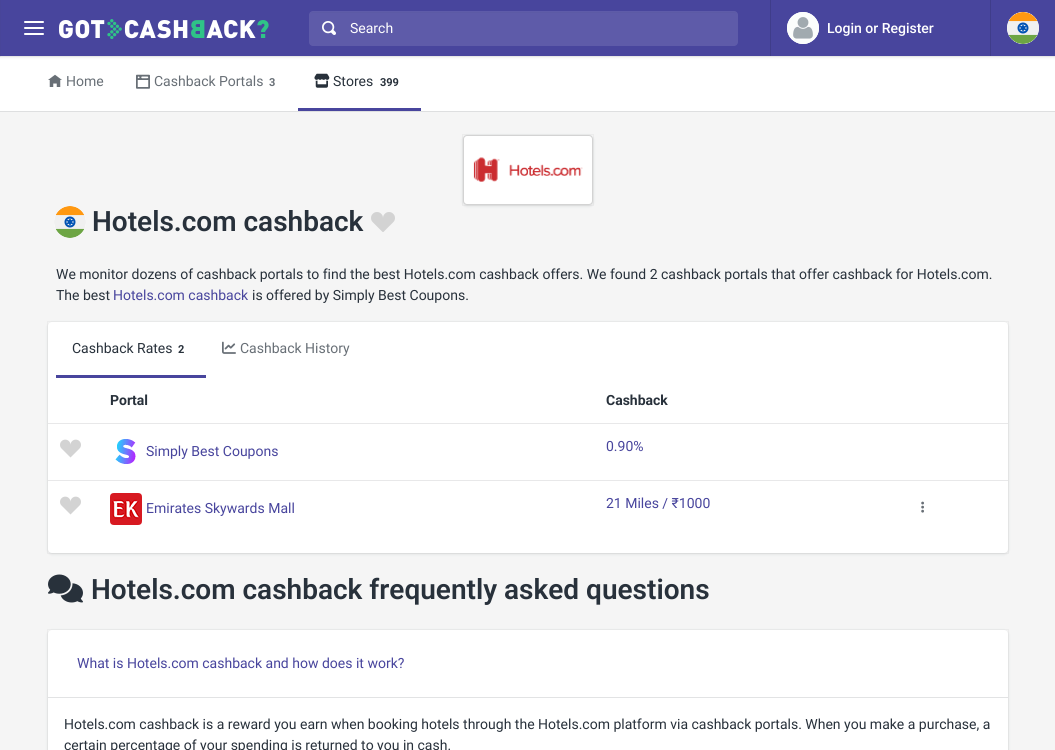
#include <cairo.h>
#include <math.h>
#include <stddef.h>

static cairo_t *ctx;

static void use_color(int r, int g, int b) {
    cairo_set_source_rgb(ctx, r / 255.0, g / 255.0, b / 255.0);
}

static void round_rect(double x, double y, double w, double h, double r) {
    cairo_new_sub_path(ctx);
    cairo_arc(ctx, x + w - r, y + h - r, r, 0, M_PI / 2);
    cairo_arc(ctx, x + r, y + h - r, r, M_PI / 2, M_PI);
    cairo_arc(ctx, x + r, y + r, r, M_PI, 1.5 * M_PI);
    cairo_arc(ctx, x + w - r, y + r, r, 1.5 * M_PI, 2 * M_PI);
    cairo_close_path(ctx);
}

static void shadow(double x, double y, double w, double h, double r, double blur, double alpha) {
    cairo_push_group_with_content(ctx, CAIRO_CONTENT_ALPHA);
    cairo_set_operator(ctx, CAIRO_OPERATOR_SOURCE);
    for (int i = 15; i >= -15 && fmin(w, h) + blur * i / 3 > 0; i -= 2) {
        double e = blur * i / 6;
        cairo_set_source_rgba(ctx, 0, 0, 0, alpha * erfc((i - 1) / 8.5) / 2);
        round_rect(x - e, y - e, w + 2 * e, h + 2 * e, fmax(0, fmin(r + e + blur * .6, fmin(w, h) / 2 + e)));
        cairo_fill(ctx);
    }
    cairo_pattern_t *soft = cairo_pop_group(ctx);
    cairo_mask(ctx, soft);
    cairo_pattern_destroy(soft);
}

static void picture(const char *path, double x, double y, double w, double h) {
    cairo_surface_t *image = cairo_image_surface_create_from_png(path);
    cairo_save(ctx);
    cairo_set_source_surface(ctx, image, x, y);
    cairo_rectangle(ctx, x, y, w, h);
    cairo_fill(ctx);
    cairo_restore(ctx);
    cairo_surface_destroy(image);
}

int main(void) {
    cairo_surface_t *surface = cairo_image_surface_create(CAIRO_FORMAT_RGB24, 1055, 750);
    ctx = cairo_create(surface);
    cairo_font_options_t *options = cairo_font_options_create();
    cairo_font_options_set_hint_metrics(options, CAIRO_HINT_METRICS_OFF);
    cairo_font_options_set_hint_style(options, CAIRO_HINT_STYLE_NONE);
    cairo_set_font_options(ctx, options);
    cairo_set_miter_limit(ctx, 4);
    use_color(245, 245, 245);
    cairo_paint(ctx);
    use_color(255, 255, 255);
    cairo_rectangle(ctx, 0, 56, 1055, 55);
    cairo_fill(ctx);
    use_color(61, 70, 79);
    shadow(0, 1, 1055, 56, 0, 1.5, 0.15);
    cairo_rectangle(ctx, -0.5, -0.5, 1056, 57);
    cairo_set_source_rgba(ctx, 0.239, 0.275, 0.31, 0.05);
    cairo_set_line_width(ctx, 1);
    cairo_stroke(ctx);
    use_color(72, 69, 157);
    cairo_rectangle(ctx, 0, 0, 1055, 56);
    cairo_fill(ctx);
    cairo_rectangle(ctx, -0.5, -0.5, 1, 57);
    cairo_set_source_rgba(ctx, 0.239, 0.275, 0.31, 0.05);
    cairo_stroke(ctx);
    use_color(255, 255, 255);
    round_rect(24, 27, 20, 2, 1);
    cairo_fill(ctx);
    round_rect(24, 21, 20, 2, 1);
    cairo_fill(ctx);
    round_rect(24, 33, 20, 2, 1);
    cairo_fill(ctx);
    picture("img1.png", 59, 19, 210, 20);
    use_color(94, 91, 169);
    round_rect(309, 11, 429, 35, 4);
    cairo_fill(ctx);
    use_color(92, 90, 165);
    cairo_new_path(ctx);
    cairo_move_to(ctx, 313, 13);
    cairo_line_to(ctx, 734, 13);
    cairo_curve_to(ctx, 736, 13, 737, 14, 737, 16);
    cairo_curve_to(ctx, 737, 14, 736, 12, 734, 12);
    cairo_line_to(ctx, 313, 12);
    cairo_curve_to(ctx, 311, 12, 310, 14, 310, 16);
    cairo_curve_to(ctx, 310, 14, 311, 13, 313, 13);
    cairo_close_path(ctx);
    cairo_fill(ctx);
    picture("img2.png", 322, 21, 14, 14);
    cairo_select_font_face(ctx, "Roboto", CAIRO_FONT_SLANT_NORMAL, CAIRO_FONT_WEIGHT_NORMAL);
    cairo_set_font_size(ctx, 14);
    use_color(255, 255, 255);
    cairo_move_to(ctx, 350, 33);
    cairo_show_text(ctx, "Search");
    use_color(63, 61, 138);
    cairo_rectangle(ctx, 770, 0, 1, 56);
    cairo_fill(ctx);
    use_color(255, 255, 255);
    cairo_arc(ctx, 803, 28, 16, 0, 2 * M_PI);
    cairo_fill(ctx);
    picture("img3.png", 787, 12, 32, 32);
    cairo_select_font_face(ctx, "Roboto Medium", CAIRO_FONT_SLANT_NORMAL, CAIRO_FONT_WEIGHT_NORMAL);
    cairo_move_to(ctx, 827, 33);
    cairo_show_text(ctx, "Login or Register");
    use_color(63, 61, 138);
    cairo_rectangle(ctx, 990, 0, 1, 56);
    cairo_fill(ctx);
    use_color(255, 255, 255);
    cairo_arc(ctx, 1023, 28, 16, 0, 2 * M_PI);
    cairo_fill(ctx);
    picture("img4.png", 1007, 12, 32, 32);
    use_color(222, 223, 224);
    cairo_rectangle(ctx, 0, 111, 1055, 1);
    cairo_fill(ctx);
    picture("img5.png", 48, 74, 14, 13);
    cairo_select_font_face(ctx, "Roboto", CAIRO_FONT_SLANT_NORMAL, CAIRO_FONT_WEIGHT_NORMAL);
    use_color(104, 111, 118);
    cairo_move_to(ctx, 66, 86);
    cairo_show_text(ctx, "Home");
    picture("img6.png", 136, 74, 14, 15);
    cairo_move_to(ctx, 154, 86);
    cairo_show_text(ctx, "Cashback Portals");
    cairo_select_font_face(ctx, "Roboto", CAIRO_FONT_SLANT_NORMAL, CAIRO_FONT_WEIGHT_BOLD);
    cairo_set_font_size(ctx, 11);
    cairo_move_to(ctx, 269, 86);
    cairo_show_text(ctx, "3");
    use_color(72, 69, 157);
    cairo_rectangle(ctx, 298, 108, 123, 3);
    cairo_fill(ctx);
    picture("img7.png", 314, 73, 16, 15);
    cairo_select_font_face(ctx, "Roboto", CAIRO_FONT_SLANT_NORMAL, CAIRO_FONT_WEIGHT_NORMAL);
    cairo_set_font_size(ctx, 14);
    use_color(40, 49, 59);
    cairo_move_to(ctx, 333, 86);
    cairo_show_text(ctx, "Stores");
    cairo_select_font_face(ctx, "Roboto", CAIRO_FONT_SLANT_NORMAL, CAIRO_FONT_WEIGHT_BOLD);
    cairo_set_font_size(ctx, 11);
    cairo_move_to(ctx, 380, 86);
    cairo_show_text(ctx, "399");
    use_color(61, 70, 79);
    shadow(463, 136, 130, 70, 4, 1.5, 0.15);
    cairo_rectangle(ctx, 462.5, 134.5, 131, 71);
    cairo_set_source_rgba(ctx, 0.239, 0.275, 0.31, 0.05);
    cairo_stroke(ctx);
    use_color(255, 255, 255);
    round_rect(463.5, 135.5, 129, 69, 3.5);
    cairo_fill_preserve(ctx);
    use_color(211, 211, 211);
    cairo_stroke(ctx);
    picture("img8.png", 473, 157, 110, 25);
    use_color(255, 255, 255);
    cairo_arc(ctx, 70, 222, 16, 0, 2 * M_PI);
    cairo_fill(ctx);
    picture("img9.png", 54, 206, 32, 32);
    cairo_select_font_face(ctx, "Roboto SemiBold", CAIRO_FONT_SLANT_NORMAL, CAIRO_FONT_WEIGHT_NORMAL);
    cairo_set_font_size(ctx, 28);
    use_color(40, 49, 59);
    cairo_move_to(ctx, 92, 231);
    cairo_show_text(ctx, "Hotels.com cashback");
    picture("img10.png", 371, 212, 24, 20);
    cairo_select_font_face(ctx, "Roboto", CAIRO_FONT_SLANT_NORMAL, CAIRO_FONT_WEIGHT_NORMAL);
    cairo_set_font_size(ctx, 14);
    cairo_move_to(ctx, 56, 279);
    cairo_show_text(ctx, "We monitor dozens of cashback portals to find the best Hotels.com cashback offers. We found 2 cashback portals that offer cashback for Hotels.com.");
    cairo_move_to(ctx, 56, 300);
    cairo_show_text(ctx, "The best");
    use_color(72, 69, 157);
    cairo_move_to(ctx, 113, 300);
    cairo_show_text(ctx, "Hotels.com cashback");
    use_color(40, 49, 59);
    cairo_move_to(ctx, 252, 300);
    cairo_show_text(ctx, "is offered by Simply Best Coupons.");
    use_color(61, 70, 79);
    shadow(48, 323, 960, 231, 4, 1.5, 0.15);
    cairo_rectangle(ctx, 47.5, 321.5, 961, 232);
    cairo_set_source_rgba(ctx, 0.239, 0.275, 0.31, 0.05);
    cairo_stroke(ctx);
    use_color(255, 255, 255);
    round_rect(48, 322, 960, 231, 4);
    cairo_fill(ctx);
    use_color(72, 69, 157);
    cairo_rectangle(ctx, 56, 375, 150, 3);
    cairo_fill(ctx);
    use_color(40, 49, 59);
    cairo_move_to(ctx, 72, 353);
    cairo_show_text(ctx, "Cashback Rates");
    cairo_select_font_face(ctx, "Roboto", CAIRO_FONT_SLANT_NORMAL, CAIRO_FONT_WEIGHT_BOLD);
    cairo_set_font_size(ctx, 11);
    cairo_move_to(ctx, 178, 353);
    cairo_show_text(ctx, "2");
    picture("img11.png", 222, 341, 14, 13);
    cairo_select_font_face(ctx, "Roboto", CAIRO_FONT_SLANT_NORMAL, CAIRO_FONT_WEIGHT_NORMAL);
    cairo_set_font_size(ctx, 14);
    use_color(104, 111, 118);
    cairo_move_to(ctx, 240, 353);
    cairo_show_text(ctx, "Cashback History");
    cairo_select_font_face(ctx, "Roboto", CAIRO_FONT_SLANT_NORMAL, CAIRO_FONT_WEIGHT_BOLD);
    use_color(40, 49, 59);
    cairo_move_to(ctx, 110, 405);
    cairo_show_text(ctx, "Portal");
    cairo_move_to(ctx, 606, 405);
    cairo_show_text(ctx, "Cashback");
    use_color(232, 232, 233);
    cairo_rectangle(ctx, 48, 423, 960, 1);
    cairo_fill(ctx);
    picture("img12.png", 60, 439, 21, 19);
    picture("img13.png", 115, 439, 21, 25);
    cairo_select_font_face(ctx, "Roboto", CAIRO_FONT_SLANT_NORMAL, CAIRO_FONT_WEIGHT_NORMAL);
    use_color(72, 69, 157);
    cairo_move_to(ctx, 146, 456);
    cairo_show_text(ctx, "Simply Best Coupons");
    cairo_move_to(ctx, 606, 451);
    cairo_show_text(ctx, "0.90%");
    use_color(232, 232, 233);
    cairo_rectangle(ctx, 48, 480, 960, 1);
    cairo_fill(ctx);
    picture("img14.png", 921, 501, 3, 12);
    picture("img12.png", 60, 496, 21, 19);
    picture("img15.png", 110, 493, 32, 32);
    use_color(72, 69, 157);
    cairo_move_to(ctx, 146, 513);
    cairo_show_text(ctx, "Emirates Skywards Mall");
    cairo_move_to(ctx, 606, 508);
    cairo_show_text(ctx, "21 Miles / ₹1000");
    picture("img16.png", 48, 574, 35, 29);
    cairo_select_font_face(ctx, "Roboto SemiBold", CAIRO_FONT_SLANT_NORMAL, CAIRO_FONT_WEIGHT_NORMAL);
    cairo_set_font_size(ctx, 28);
    use_color(40, 49, 59);
    cairo_move_to(ctx, 91, 599);
    cairo_show_text(ctx, "Hotels.com cashback frequently asked questions");
    use_color(61, 70, 79);
    shadow(48, 631, 960, 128, 4, 1.5, 0.15);
    cairo_rectangle(ctx, 47.5, 629.5, 961, 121);
    cairo_set_source_rgba(ctx, 0.239, 0.275, 0.31, 0.05);
    cairo_stroke(ctx);
    use_color(255, 255, 255);
    round_rect(48, 630, 960, 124, 4);
    cairo_fill(ctx);
    use_color(226, 227, 228);
    cairo_rectangle(ctx, 48, 697, 960, 1);
    cairo_fill(ctx);
    cairo_select_font_face(ctx, "Roboto", CAIRO_FONT_SLANT_NORMAL, CAIRO_FONT_WEIGHT_NORMAL);
    cairo_set_font_size(ctx, 14);
    use_color(72, 69, 157);
    cairo_move_to(ctx, 77, 668);
    cairo_show_text(ctx, "What is Hotels.com cashback and how does it work?");
    use_color(40, 49, 59);
    cairo_move_to(ctx, 64, 729);
    cairo_show_text(ctx, "Hotels.com cashback is a reward you earn when booking hotels through the Hotels.com platform via cashback portals. When you make a purchase, a");
    cairo_move_to(ctx, 64, 750);
    cairo_show_text(ctx, "certain percentage of your spending is returned to you in cash.");
    cairo_surface_write_to_png(surface, "result.png");
    cairo_font_options_destroy(options);
    cairo_destroy(ctx);
    cairo_surface_destroy(surface);
    return 0;
}
